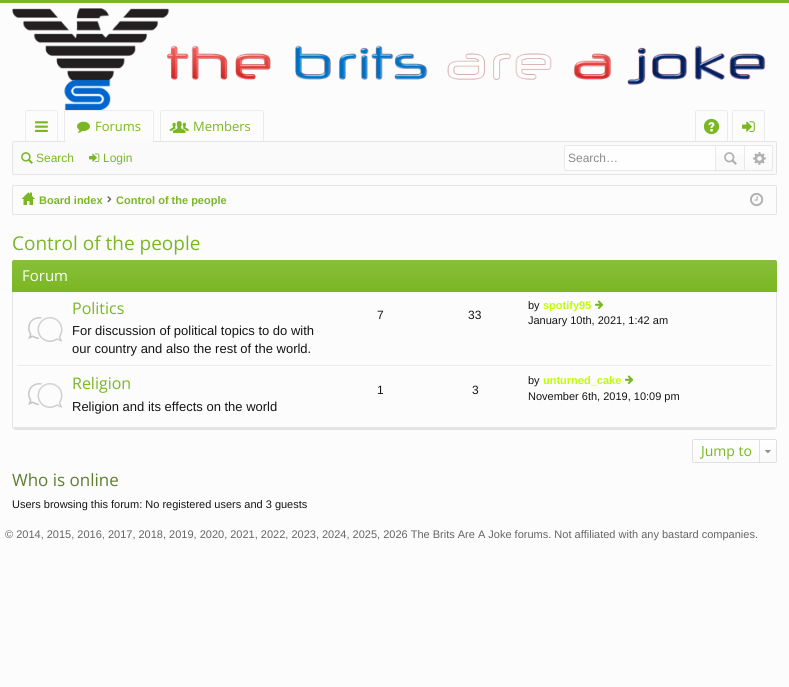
#include <cairo.h>
#include <math.h>
#include <stddef.h>

static cairo_t *ctx;

static void use_color(int r, int g, int b) {
    cairo_set_source_rgb(ctx, r / 255.0, g / 255.0, b / 255.0);
}

static void round_rect(double x, double y, double w, double h, double r) {
    cairo_new_sub_path(ctx);
    cairo_arc(ctx, x + w - r, y + h - r, r, 0, M_PI / 2);
    cairo_arc(ctx, x + r, y + h - r, r, M_PI / 2, M_PI);
    cairo_arc(ctx, x + r, y + r, r, M_PI, 1.5 * M_PI);
    cairo_arc(ctx, x + w - r, y + r, r, 1.5 * M_PI, 2 * M_PI);
    cairo_close_path(ctx);
}

static void picture(const char *path, double x, double y, double w, double h) {
    cairo_surface_t *image = cairo_image_surface_create_from_png(path);
    cairo_save(ctx);
    cairo_set_source_surface(ctx, image, x, y);
    cairo_rectangle(ctx, x, y, w, h);
    cairo_fill(ctx);
    cairo_restore(ctx);
    cairo_surface_destroy(image);
}

int main(void) {
    cairo_surface_t *surface = cairo_image_surface_create(CAIRO_FORMAT_RGB24, 789, 687);
    ctx = cairo_create(surface);
    cairo_font_options_t *options = cairo_font_options_create();
    cairo_font_options_set_hint_metrics(options, CAIRO_HINT_METRICS_OFF);
    cairo_font_options_set_hint_style(options, CAIRO_HINT_STYLE_NONE);
    cairo_set_font_options(ctx, options);
    cairo_set_miter_limit(ctx, 4);
    cairo_pattern_t *gradient;
    use_color(252, 252, 252);
    cairo_paint(ctx);
    use_color(122, 183, 35);
    cairo_rectangle(ctx, 0, 0, 789, 3);
    cairo_fill(ctx);
    picture("img1.png", 12, 8, 754, 102);
    use_color(235, 235, 235);
    cairo_rectangle(ctx, 26, 110, 31, 1);
    cairo_fill(ctx);
    cairo_rectangle(ctx, 57, 111, 1, 31);
    cairo_fill(ctx);
    cairo_rectangle(ctx, 25, 111, 1, 31);
    cairo_fill(ctx);
    picture("img2.png", 35, 121, 13, 11);
    cairo_rectangle(ctx, 65, 110, 88, 1);
    cairo_fill(ctx);
    cairo_rectangle(ctx, 153, 111, 1, 31);
    cairo_fill(ctx);
    cairo_rectangle(ctx, 64, 111, 1, 31);
    cairo_fill(ctx);
    picture("img3.png", 77, 121, 13, 12);
    cairo_select_font_face(ctx, "Open Sans", CAIRO_FONT_SLANT_NORMAL, CAIRO_FONT_WEIGHT_NORMAL);
    cairo_set_font_size(ctx, 13);
    use_color(122, 183, 35);
    cairo_move_to(ctx, 95, 131);
    cairo_show_text(ctx, "Forums");
    use_color(235, 235, 235);
    cairo_rectangle(ctx, 263, 111, 1, 31);
    cairo_fill(ctx);
    cairo_rectangle(ctx, 160, 111, 1, 31);
    cairo_fill(ctx);
    cairo_rectangle(ctx, 727, 111, 1, 31);
    cairo_fill(ctx);
    cairo_rectangle(ctx, 695, 111, 1, 31);
    cairo_fill(ctx);
    cairo_rectangle(ctx, 764, 111, 1, 31);
    cairo_fill(ctx);
    cairo_rectangle(ctx, 732, 111, 1, 31);
    cairo_fill(ctx);
    use_color(250, 250, 250);
    round_rect(12.5, 141.5, 764, 33, 1.5);
    cairo_fill_preserve(ctx);
    use_color(228, 228, 228);
    cairo_set_line_width(ctx, 1);
    cairo_stroke(ctx);
    use_color(250, 250, 250);
    cairo_new_path(ctx);
    cairo_move_to(ctx, 67, 140);
    cairo_line_to(ctx, 151, 140);
    cairo_curve_to(ctx, 152, 140, 153, 141, 153, 142);
    cairo_line_to(ctx, 153, 144);
    cairo_line_to(ctx, 65, 144);
    cairo_line_to(ctx, 65, 142);
    cairo_curve_to(ctx, 65, 141, 66, 140, 67, 140);
    cairo_close_path(ctx);
    cairo_fill(ctx);
    use_color(235, 235, 235);
    cairo_rectangle(ctx, 161, 110, 102, 1);
    cairo_fill(ctx);
    picture("img4.png", 169, 121, 20, 12);
    use_color(122, 183, 35);
    cairo_move_to(ctx, 193, 131);
    cairo_show_text(ctx, "Members");
    use_color(235, 235, 235);
    cairo_rectangle(ctx, 696, 110, 31, 1);
    cairo_fill(ctx);
    picture("img5.png", 703, 118, 17, 17);
    cairo_rectangle(ctx, 733, 110, 31, 1);
    cairo_fill(ctx);
    picture("img6.png", 742, 121, 13, 11);
    picture("img7.png", 21, 152, 12, 12);
    cairo_select_font_face(ctx, "Liberation Sans", CAIRO_FONT_SLANT_NORMAL, CAIRO_FONT_WEIGHT_NORMAL);
    cairo_set_font_size(ctx, 12);
    use_color(122, 183, 35);
    cairo_move_to(ctx, 36, 162);
    cairo_show_text(ctx, "Search");
    picture("img8.png", 89, 153, 11, 9);
    cairo_move_to(ctx, 103, 162);
    cairo_show_text(ctx, "Login");
    round_rect(564.5, 145.5, 208, 25, 1.5);
    use_color(232, 232, 232);
    cairo_stroke(ctx);
    use_color(254, 254, 254);
    cairo_new_path(ctx);
    cairo_move_to(ctx, 567, 146);
    cairo_line_to(ctx, 715, 146);
    cairo_line_to(ctx, 715, 170);
    cairo_line_to(ctx, 567, 170);
    cairo_curve_to(ctx, 566, 170, 565, 169, 565, 168);
    cairo_line_to(ctx, 565, 148);
    cairo_curve_to(ctx, 565, 147, 566, 146, 567, 146);
    cairo_close_path(ctx);
    cairo_fill(ctx);
    use_color(138, 138, 138);
    cairo_move_to(ctx, 568, 162);
    cairo_show_text(ctx, "Search…");
    gradient = cairo_pattern_create_linear(730, 146, 730, 170);
    cairo_pattern_add_color_stop_rgba(gradient, 0, 0.996, 0.996, 0.996, 1);
    cairo_pattern_add_color_stop_rgba(gradient, 1, 0.98, 0.98, 0.98, 1);
    cairo_set_source(ctx, gradient);
    cairo_pattern_destroy(gradient);
    cairo_rectangle(ctx, 716, 146, 28, 9);
    cairo_fill(ctx);
    use_color(232, 232, 232);
    cairo_rectangle(ctx, 744, 146, 1, 24);
    cairo_fill(ctx);
    cairo_rectangle(ctx, 715, 146, 1, 24);
    cairo_fill(ctx);
    picture("img9.png", 724, 152, 13, 13);
    gradient = cairo_pattern_create_linear(759, 146, 759, 170);
    cairo_pattern_add_color_stop_rgba(gradient, 0, 0.996, 0.996, 0.996, 1);
    cairo_pattern_add_color_stop_rgba(gradient, 1, 0.98, 0.98, 0.98, 1);
    cairo_set_source(ctx, gradient);
    cairo_pattern_destroy(gradient);
    cairo_new_path(ctx);
    cairo_move_to(ctx, 745, 146);
    cairo_line_to(ctx, 770, 146);
    cairo_curve_to(ctx, 771, 146, 772, 147, 772, 148);
    cairo_line_to(ctx, 772, 168);
    cairo_curve_to(ctx, 772, 169, 771, 170, 770, 170);
    cairo_line_to(ctx, 745, 170);
    cairo_close_path(ctx);
    cairo_fill(ctx);
    picture("img10.png", 753, 152, 13, 13);
    round_rect(12.5, 185.5, 764, 29, 1.5);
    use_color(228, 228, 228);
    cairo_stroke(ctx);
    picture("img11.png", 21, 192, 14, 13);
    cairo_select_font_face(ctx, "Liberation Sans", CAIRO_FONT_SLANT_NORMAL, CAIRO_FONT_WEIGHT_BOLD);
    cairo_set_font_size(ctx, 11);
    use_color(122, 183, 35);
    cairo_move_to(ctx, 39, 204);
    cairo_show_text(ctx, "Board index");
    picture("img12.png", 107, 196, 5, 7);
    cairo_move_to(ctx, 116, 204);
    cairo_show_text(ctx, "Control of the people");
    picture("img13.png", 750, 192, 14, 15);
    cairo_select_font_face(ctx, "Open Sans", CAIRO_FONT_SLANT_NORMAL, CAIRO_FONT_WEIGHT_NORMAL);
    cairo_set_font_size(ctx, 19);
    cairo_move_to(ctx, 12, 250);
    cairo_show_text(ctx, "Control of the people");
    cairo_new_path(ctx);
    cairo_move_to(ctx, 14, 260.5);
    cairo_line_to(ctx, 775, 260.5);
    cairo_curve_to(ctx, 776, 260.5, 776.5, 261, 776.5, 262);
    cairo_line_to(ctx, 776.5, 426);
    cairo_curve_to(ctx, 776.5, 428, 775, 429.5, 773, 429.5);
    cairo_line_to(ctx, 16, 429.5);
    cairo_curve_to(ctx, 14, 429.5, 12.5, 428, 12.5, 426);
    cairo_line_to(ctx, 12.5, 262);
    cairo_curve_to(ctx, 12.5, 261, 13, 260.5, 14, 260.5);
    cairo_close_path(ctx);
    use_color(228, 228, 228);
    cairo_stroke(ctx);
    cairo_rectangle(ctx, 14, 427, 761, 2);
    cairo_fill(ctx);
    use_color(122, 183, 35);
    cairo_new_path(ctx);
    cairo_move_to(ctx, 14, 260);
    cairo_line_to(ctx, 775, 260);
    cairo_curve_to(ctx, 776, 260, 777, 261, 777, 262);
    cairo_line_to(ctx, 777, 292);
    cairo_line_to(ctx, 12, 292);
    cairo_line_to(ctx, 12, 262);
    cairo_curve_to(ctx, 12, 261, 13, 260, 14, 260);
    cairo_close_path(ctx);
    cairo_fill(ctx);
    gradient = cairo_pattern_create_linear(395, 260, 395, 292);
    cairo_pattern_add_color_stop_rgba(gradient, 0, 1, 1, 1, 0.1);
    cairo_pattern_add_color_stop_rgba(gradient, 1, 1, 1, 1, 0);
    cairo_set_source(ctx, gradient);
    cairo_pattern_destroy(gradient);
    cairo_new_path(ctx);
    cairo_move_to(ctx, 14, 260);
    cairo_line_to(ctx, 775, 260);
    cairo_curve_to(ctx, 776, 260, 777, 261, 777, 262);
    cairo_line_to(ctx, 777, 292);
    cairo_line_to(ctx, 12, 292);
    cairo_line_to(ctx, 12, 262);
    cairo_curve_to(ctx, 12, 261, 13, 260, 14, 260);
    cairo_close_path(ctx);
    cairo_fill(ctx);
    cairo_set_font_size(ctx, 15);
    use_color(255, 255, 255);
    cairo_move_to(ctx, 22, 281);
    cairo_show_text(ctx, "Forum");
    use_color(235, 235, 235);
    cairo_rectangle(ctx, 17, 365, 755, 1);
    cairo_fill(ctx);
    picture("img14.png", 28, 317, 35, 25);
    cairo_set_font_size(ctx, 16);
    use_color(122, 183, 35);
    cairo_move_to(ctx, 72, 314);
    cairo_show_text(ctx, "Politics");
    cairo_select_font_face(ctx, "Liberation Sans", CAIRO_FONT_SLANT_NORMAL, CAIRO_FONT_WEIGHT_NORMAL);
    cairo_set_font_size(ctx, 13);
    use_color(20, 20, 20);
    cairo_move_to(ctx, 72, 335);
    cairo_show_text(ctx, "For discussion of political topics to do with");
    cairo_move_to(ctx, 72, 353);
    cairo_show_text(ctx, "our country and also the rest of the world.");
    cairo_set_font_size(ctx, 12);
    cairo_move_to(ctx, 377, 319);
    cairo_show_text(ctx, "7");
    cairo_move_to(ctx, 468, 319);
    cairo_show_text(ctx, "33");
    cairo_set_font_size(ctx, 11);
    cairo_move_to(ctx, 528, 309);
    cairo_show_text(ctx, "by");
    cairo_select_font_face(ctx, "Liberation Sans", CAIRO_FONT_SLANT_NORMAL, CAIRO_FONT_WEIGHT_BOLD);
    use_color(191, 255, 0);
    cairo_move_to(ctx, 543, 309);
    cairo_show_text(ctx, "spotify95");
    picture("img15.png", 595, 300, 9, 9);
    cairo_select_font_face(ctx, "Liberation Sans", CAIRO_FONT_SLANT_NORMAL, CAIRO_FONT_WEIGHT_NORMAL);
    use_color(20, 20, 20);
    cairo_move_to(ctx, 528, 324);
    cairo_show_text(ctx, "January 10th, 2021, 1:42 am");
    use_color(255, 255, 255);
    cairo_rectangle(ctx, 17, 366, 755, 1);
    cairo_fill(ctx);
    picture("img14.png", 28, 383, 35, 25);
    cairo_select_font_face(ctx, "Open Sans", CAIRO_FONT_SLANT_NORMAL, CAIRO_FONT_WEIGHT_NORMAL);
    cairo_set_font_size(ctx, 16);
    use_color(122, 183, 35);
    cairo_move_to(ctx, 72, 389);
    cairo_show_text(ctx, "Religion");
    cairo_select_font_face(ctx, "Liberation Sans", CAIRO_FONT_SLANT_NORMAL, CAIRO_FONT_WEIGHT_NORMAL);
    cairo_set_font_size(ctx, 13);
    use_color(20, 20, 20);
    cairo_move_to(ctx, 72, 411);
    cairo_show_text(ctx, "Religion and its effects on the world");
    cairo_set_font_size(ctx, 12);
    cairo_move_to(ctx, 377, 394);
    cairo_show_text(ctx, "1");
    cairo_move_to(ctx, 472, 394);
    cairo_show_text(ctx, "3");
    cairo_set_font_size(ctx, 11);
    cairo_move_to(ctx, 528, 384);
    cairo_show_text(ctx, "by");
    cairo_select_font_face(ctx, "Liberation Sans", CAIRO_FONT_SLANT_NORMAL, CAIRO_FONT_WEIGHT_BOLD);
    use_color(191, 255, 0);
    cairo_move_to(ctx, 543, 384);
    cairo_show_text(ctx, "unturned_cake");
    picture("img15.png", 625, 375, 9, 9);
    cairo_select_font_face(ctx, "Liberation Sans", CAIRO_FONT_SLANT_NORMAL, CAIRO_FONT_WEIGHT_NORMAL);
    use_color(20, 20, 20);
    cairo_move_to(ctx, 528, 400);
    cairo_show_text(ctx, "November 6th, 2019, 10:09 pm");
    cairo_save(ctx);
    round_rect(692, 439, 85, 24, 2);
    cairo_clip(ctx);
    gradient = cairo_pattern_create_linear(735, 440, 735, 462);
    cairo_pattern_add_color_stop_rgba(gradient, 0, 1, 1, 1, 1);
    cairo_pattern_add_color_stop_rgba(gradient, 1, 0.98, 0.98, 0.98, 1);
    cairo_set_source(ctx, gradient);
    cairo_pattern_destroy(gradient);
    cairo_rectangle(ctx, 692, 440, 85, 22);
    cairo_fill(ctx);
    cairo_restore(ctx);
    round_rect(692.5, 439.5, 84, 23, 1.5);
    use_color(224, 224, 224);
    cairo_stroke(ctx);
    cairo_select_font_face(ctx, "Open Sans", CAIRO_FONT_SLANT_NORMAL, CAIRO_FONT_WEIGHT_NORMAL);
    cairo_set_font_size(ctx, 14);
    use_color(122, 183, 35);
    cairo_move_to(ctx, 701, 456);
    cairo_show_text(ctx, "Jump to");
    use_color(224, 224, 224);
    cairo_rectangle(ctx, 759, 440, 1, 22);
    cairo_fill(ctx);
    picture("img16.png", 765, 450, 6, 4);
    cairo_set_font_size(ctx, 17);
    use_color(94, 126, 48);
    cairo_move_to(ctx, 12, 486);
    cairo_show_text(ctx, "Who is online");
    cairo_select_font_face(ctx, "Liberation Sans", CAIRO_FONT_SLANT_NORMAL, CAIRO_FONT_WEIGHT_NORMAL);
    cairo_set_font_size(ctx, 11);
    use_color(20, 20, 20);
    cairo_move_to(ctx, 12, 508);
    cairo_show_text(ctx, "Users browsing this forum: No registered users and 3 guests");
    use_color(100, 100, 100);
    cairo_move_to(ctx, 5, 538);
    cairo_show_text(ctx, "© 2014, 2015, 2016, 2017, 2018, 2019, 2020, 2021, 2022, 2023, 2024, 2025, 2026 The Brits Are A Joke forums. Not affiliated with any bastard companies.");
    cairo_surface_write_to_png(surface, "result.png");
    cairo_font_options_destroy(options);
    cairo_destroy(ctx);
    cairo_surface_destroy(surface);
    return 0;
}
